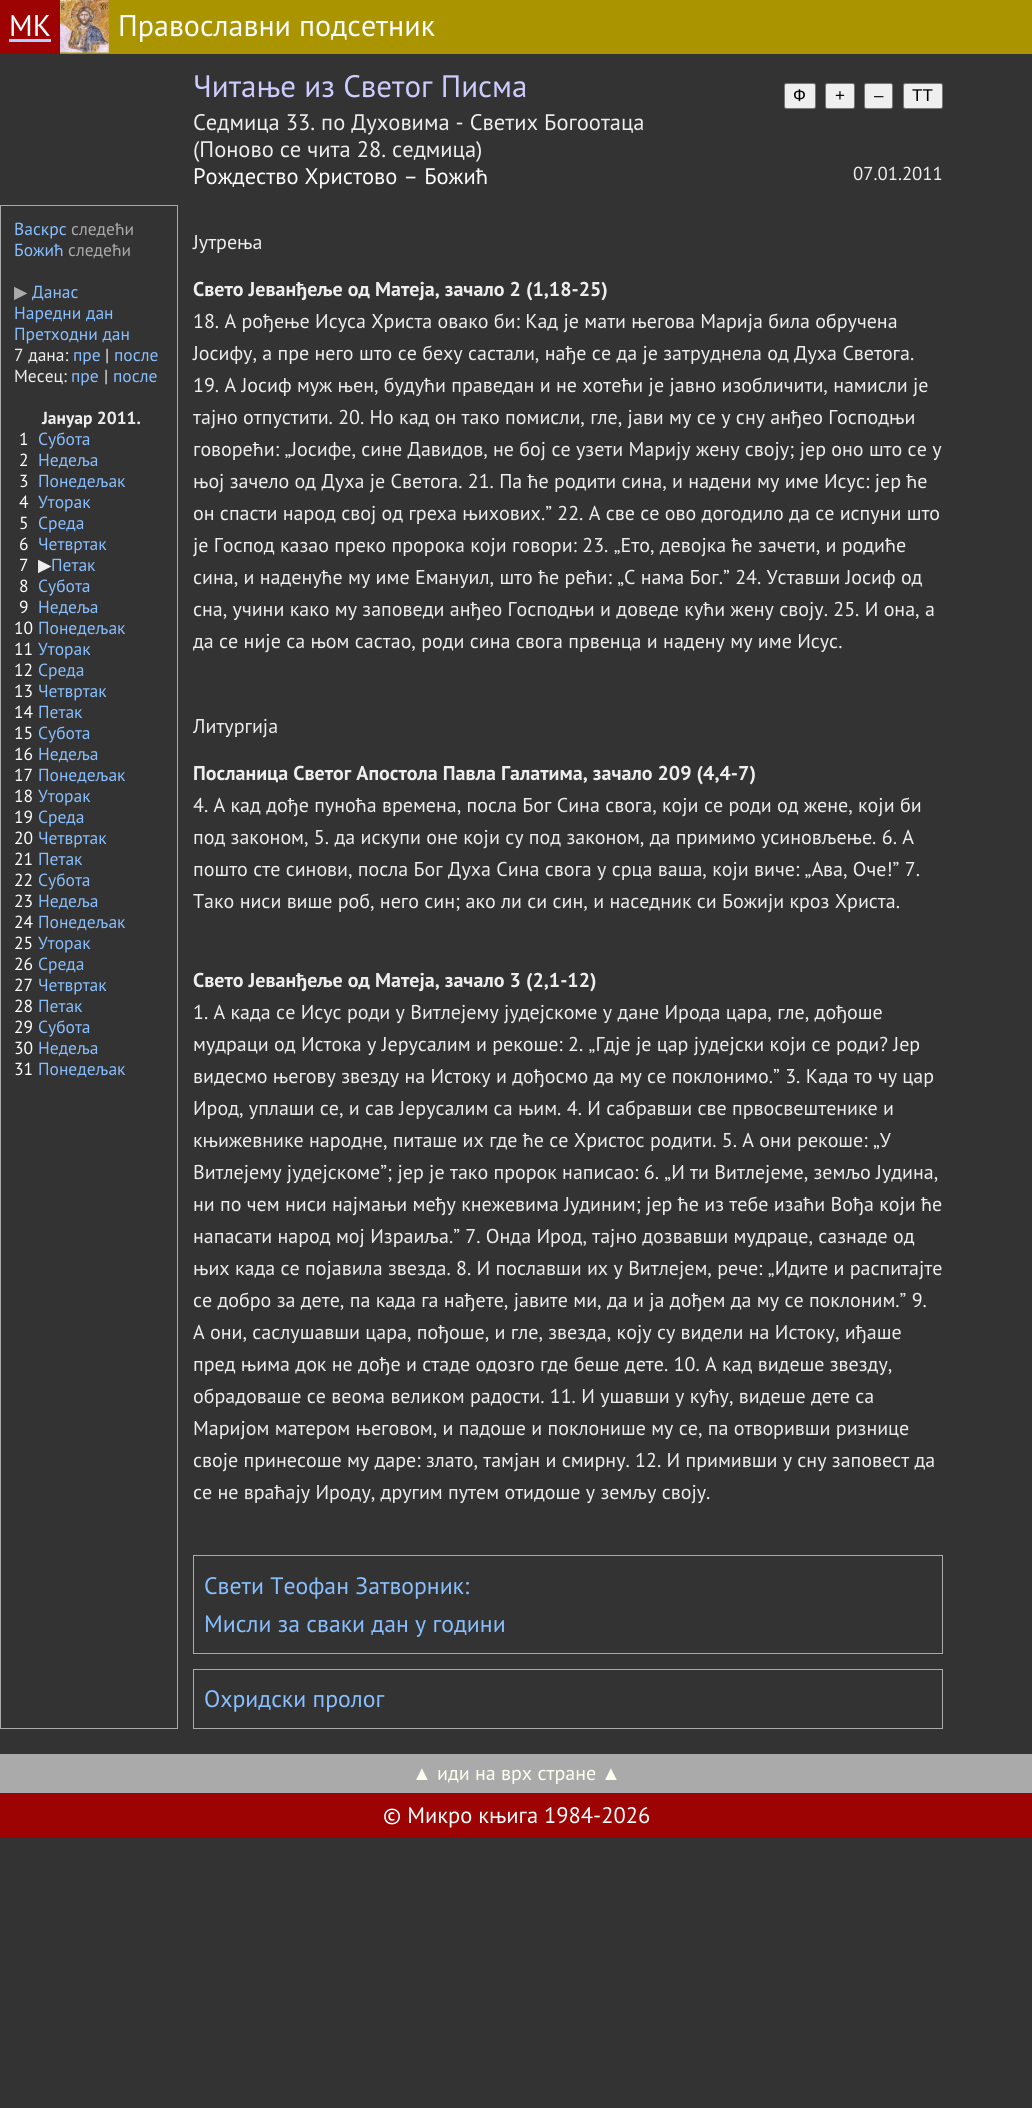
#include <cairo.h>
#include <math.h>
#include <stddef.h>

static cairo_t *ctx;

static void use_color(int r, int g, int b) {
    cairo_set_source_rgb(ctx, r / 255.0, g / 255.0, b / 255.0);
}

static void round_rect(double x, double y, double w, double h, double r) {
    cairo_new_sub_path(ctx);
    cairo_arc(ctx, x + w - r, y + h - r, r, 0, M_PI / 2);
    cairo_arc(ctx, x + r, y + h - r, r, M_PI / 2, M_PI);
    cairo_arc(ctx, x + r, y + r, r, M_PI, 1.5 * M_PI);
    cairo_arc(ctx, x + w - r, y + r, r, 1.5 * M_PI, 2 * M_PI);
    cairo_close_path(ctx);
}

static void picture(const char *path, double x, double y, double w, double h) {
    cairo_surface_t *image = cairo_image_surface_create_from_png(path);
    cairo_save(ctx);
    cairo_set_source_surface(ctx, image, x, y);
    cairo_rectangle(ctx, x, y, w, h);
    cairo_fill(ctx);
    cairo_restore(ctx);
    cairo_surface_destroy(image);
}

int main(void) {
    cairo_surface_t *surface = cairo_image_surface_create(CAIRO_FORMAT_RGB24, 1032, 2108);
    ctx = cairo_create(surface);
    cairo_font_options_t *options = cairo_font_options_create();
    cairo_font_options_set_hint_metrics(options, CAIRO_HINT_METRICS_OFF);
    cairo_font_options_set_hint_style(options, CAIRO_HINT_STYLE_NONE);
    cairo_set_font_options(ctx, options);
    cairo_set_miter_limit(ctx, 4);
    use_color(51, 51, 51);
    cairo_paint(ctx);
    use_color(170, 148, 0);
    cairo_rectangle(ctx, 60, 0, 972, 54);
    cairo_fill(ctx);
    use_color(157, 3, 3);
    cairo_rectangle(ctx, 0, 0, 60, 54);
    cairo_fill(ctx);
    cairo_select_font_face(ctx, "PT Sans", CAIRO_FONT_SLANT_NORMAL, CAIRO_FONT_WEIGHT_NORMAL);
    cairo_set_font_size(ctx, 30);
    use_color(255, 255, 255);
    cairo_move_to(ctx, 9, 36);
    cairo_show_text(ctx, "МК");
    use_color(176, 212, 255);
    cairo_rectangle(ctx, 9, 39, 42, 3);
    cairo_fill(ctx);
    picture("img1.png", 60, 0, 49, 53);
    use_color(255, 255, 255);
    cairo_move_to(ctx, 118, 36);
    cairo_show_text(ctx, "Православни подсетник");
    cairo_set_font_size(ctx, 31);
    use_color(204, 204, 255);
    cairo_move_to(ctx, 193, 97);
    cairo_show_text(ctx, "Читање из Светог Писма");
    use_color(239, 239, 239);
    round_rect(784.5, 83.5, 31, 25, 2);
    cairo_fill_preserve(ctx);
    use_color(118, 118, 118);
    cairo_set_line_width(ctx, 1);
    cairo_stroke(ctx);
    cairo_select_font_face(ctx, "Liberation Sans", CAIRO_FONT_SLANT_NORMAL, CAIRO_FONT_WEIGHT_NORMAL);
    cairo_set_font_size(ctx, 17);
    use_color(0, 0, 0);
    cairo_move_to(ctx, 793, 101);
    cairo_show_text(ctx, "Ф");
    use_color(239, 239, 239);
    round_rect(825.5, 83.5, 29, 25, 2);
    cairo_fill_preserve(ctx);
    use_color(118, 118, 118);
    cairo_stroke(ctx);
    use_color(0, 0, 0);
    cairo_move_to(ctx, 835, 101);
    cairo_show_text(ctx, "+");
    use_color(239, 239, 239);
    round_rect(864.5, 83.5, 28, 25, 2);
    cairo_fill_preserve(ctx);
    use_color(118, 118, 118);
    cairo_stroke(ctx);
    use_color(0, 0, 0);
    cairo_move_to(ctx, 874, 101);
    cairo_show_text(ctx, "–");
    use_color(239, 239, 239);
    round_rect(903.5, 83.5, 39, 25, 2);
    cairo_fill_preserve(ctx);
    use_color(118, 118, 118);
    cairo_stroke(ctx);
    use_color(0, 0, 0);
    cairo_move_to(ctx, 912, 101);
    cairo_show_text(ctx, "TT");
    cairo_select_font_face(ctx, "PT Sans", CAIRO_FONT_SLANT_NORMAL, CAIRO_FONT_WEIGHT_NORMAL);
    cairo_set_font_size(ctx, 22.5);
    use_color(238, 238, 238);
    cairo_move_to(ctx, 193, 130);
    cairo_show_text(ctx, "Седмица 33. по Духовима - Светих Богоотаца");
    cairo_move_to(ctx, 193, 157);
    cairo_show_text(ctx, "(Поново се чита 28. седмица)");
    use_color(255, 255, 255);
    cairo_move_to(ctx, 193, 184);
    cairo_show_text(ctx, "Рождество Христово – Божић");
    cairo_set_font_size(ctx, 18.75);
    use_color(238, 238, 238);
    cairo_move_to(ctx, 853, 180);
    cairo_show_text(ctx, "07.01.2011");
    cairo_rectangle(ctx, 0.5, 205.5, 177, 1523);
    use_color(170, 170, 170);
    cairo_stroke(ctx);
    cairo_set_font_size(ctx, 17.5);
    use_color(136, 191, 255);
    cairo_move_to(ctx, 14, 235);
    cairo_show_text(ctx, "Васкрс");
    use_color(170, 170, 170);
    cairo_move_to(ctx, 71, 235);
    cairo_show_text(ctx, "следећи");
    use_color(136, 191, 255);
    cairo_move_to(ctx, 14, 256);
    cairo_show_text(ctx, "Божић");
    use_color(170, 170, 170);
    cairo_move_to(ctx, 68, 256);
    cairo_show_text(ctx, "следећи");
    cairo_select_font_face(ctx, "DejaVu Sans", CAIRO_FONT_SLANT_NORMAL, CAIRO_FONT_WEIGHT_NORMAL);
    cairo_move_to(ctx, 14, 298);
    cairo_show_text(ctx, "▶");
    cairo_select_font_face(ctx, "PT Sans", CAIRO_FONT_SLANT_NORMAL, CAIRO_FONT_WEIGHT_NORMAL);
    use_color(136, 191, 255);
    cairo_move_to(ctx, 32, 298);
    cairo_show_text(ctx, "Данас");
    cairo_move_to(ctx, 14, 319);
    cairo_show_text(ctx, "Наредни дан");
    cairo_move_to(ctx, 14, 340);
    cairo_show_text(ctx, "Претходни дан");
    use_color(238, 238, 238);
    cairo_move_to(ctx, 14, 361);
    cairo_show_text(ctx, "7 дана:");
    use_color(136, 191, 255);
    cairo_move_to(ctx, 73, 361);
    cairo_show_text(ctx, "пре");
    use_color(238, 238, 238);
    cairo_move_to(ctx, 105, 361);
    cairo_show_text(ctx, "|");
    use_color(136, 191, 255);
    cairo_move_to(ctx, 114, 361);
    cairo_show_text(ctx, "после");
    use_color(238, 238, 238);
    cairo_move_to(ctx, 14, 382);
    cairo_show_text(ctx, "Месец:");
    use_color(136, 191, 255);
    cairo_move_to(ctx, 71, 382);
    cairo_show_text(ctx, "пре");
    use_color(238, 238, 238);
    cairo_move_to(ctx, 104, 382);
    cairo_show_text(ctx, "|");
    use_color(136, 191, 255);
    cairo_move_to(ctx, 113, 382);
    cairo_show_text(ctx, "после");
    cairo_select_font_face(ctx, "PT Sans", CAIRO_FONT_SLANT_NORMAL, CAIRO_FONT_WEIGHT_BOLD);
    use_color(238, 238, 238);
    cairo_move_to(ctx, 42, 424);
    cairo_show_text(ctx, "Јануар 2011.");
    cairo_select_font_face(ctx, "PT Sans", CAIRO_FONT_SLANT_NORMAL, CAIRO_FONT_WEIGHT_NORMAL);
    use_color(255, 255, 255);
    cairo_move_to(ctx, 19, 445);
    cairo_show_text(ctx, "1");
    use_color(136, 191, 255);
    cairo_move_to(ctx, 38, 445);
    cairo_show_text(ctx, "Субота");
    use_color(255, 255, 255);
    cairo_move_to(ctx, 19, 466);
    cairo_show_text(ctx, "2");
    use_color(136, 191, 255);
    cairo_move_to(ctx, 38, 466);
    cairo_show_text(ctx, "Недеља");
    use_color(255, 255, 255);
    cairo_move_to(ctx, 19, 487);
    cairo_show_text(ctx, "3");
    use_color(136, 191, 255);
    cairo_move_to(ctx, 38, 487);
    cairo_show_text(ctx, "Понедељак");
    use_color(255, 255, 255);
    cairo_move_to(ctx, 19, 508);
    cairo_show_text(ctx, "4");
    use_color(136, 191, 255);
    cairo_move_to(ctx, 38, 508);
    cairo_show_text(ctx, "Уторак");
    use_color(255, 255, 255);
    cairo_move_to(ctx, 19, 529);
    cairo_show_text(ctx, "5");
    use_color(136, 191, 255);
    cairo_move_to(ctx, 38, 529);
    cairo_show_text(ctx, "Среда");
    use_color(255, 255, 255);
    cairo_move_to(ctx, 19, 550);
    cairo_show_text(ctx, "6");
    use_color(136, 191, 255);
    cairo_move_to(ctx, 38, 550);
    cairo_show_text(ctx, "Четвртак");
    use_color(255, 255, 255);
    cairo_move_to(ctx, 19, 571);
    cairo_show_text(ctx, "7");
    cairo_select_font_face(ctx, "DejaVu Sans", CAIRO_FONT_SLANT_NORMAL, CAIRO_FONT_WEIGHT_NORMAL);
    use_color(238, 238, 238);
    cairo_move_to(ctx, 38, 571);
    cairo_show_text(ctx, "▶");
    cairo_select_font_face(ctx, "PT Sans", CAIRO_FONT_SLANT_NORMAL, CAIRO_FONT_WEIGHT_NORMAL);
    use_color(136, 191, 255);
    cairo_move_to(ctx, 51, 571);
    cairo_show_text(ctx, "Петак");
    use_color(255, 255, 255);
    cairo_move_to(ctx, 19, 592);
    cairo_show_text(ctx, "8");
    use_color(136, 191, 255);
    cairo_move_to(ctx, 38, 592);
    cairo_show_text(ctx, "Субота");
    use_color(255, 255, 255);
    cairo_move_to(ctx, 19, 613);
    cairo_show_text(ctx, "9");
    use_color(136, 191, 255);
    cairo_move_to(ctx, 38, 613);
    cairo_show_text(ctx, "Недеља");
    use_color(255, 255, 255);
    cairo_move_to(ctx, 14, 634);
    cairo_show_text(ctx, "10");
    use_color(136, 191, 255);
    cairo_move_to(ctx, 38, 634);
    cairo_show_text(ctx, "Понедељак");
    use_color(255, 255, 255);
    cairo_move_to(ctx, 14, 655);
    cairo_show_text(ctx, "11");
    use_color(136, 191, 255);
    cairo_move_to(ctx, 38, 655);
    cairo_show_text(ctx, "Уторак");
    use_color(255, 255, 255);
    cairo_move_to(ctx, 14, 676);
    cairo_show_text(ctx, "12");
    use_color(136, 191, 255);
    cairo_move_to(ctx, 38, 676);
    cairo_show_text(ctx, "Среда");
    use_color(255, 255, 255);
    cairo_move_to(ctx, 14, 697);
    cairo_show_text(ctx, "13");
    use_color(136, 191, 255);
    cairo_move_to(ctx, 38, 697);
    cairo_show_text(ctx, "Четвртак");
    use_color(255, 255, 255);
    cairo_move_to(ctx, 14, 718);
    cairo_show_text(ctx, "14");
    use_color(136, 191, 255);
    cairo_move_to(ctx, 38, 718);
    cairo_show_text(ctx, "Петак");
    use_color(255, 255, 255);
    cairo_move_to(ctx, 14, 739);
    cairo_show_text(ctx, "15");
    use_color(136, 191, 255);
    cairo_move_to(ctx, 38, 739);
    cairo_show_text(ctx, "Субота");
    use_color(255, 255, 255);
    cairo_move_to(ctx, 14, 760);
    cairo_show_text(ctx, "16");
    use_color(136, 191, 255);
    cairo_move_to(ctx, 38, 760);
    cairo_show_text(ctx, "Недеља");
    use_color(255, 255, 255);
    cairo_move_to(ctx, 14, 781);
    cairo_show_text(ctx, "17");
    use_color(136, 191, 255);
    cairo_move_to(ctx, 38, 781);
    cairo_show_text(ctx, "Понедељак");
    use_color(255, 255, 255);
    cairo_move_to(ctx, 14, 802);
    cairo_show_text(ctx, "18");
    use_color(136, 191, 255);
    cairo_move_to(ctx, 38, 802);
    cairo_show_text(ctx, "Уторак");
    use_color(255, 255, 255);
    cairo_move_to(ctx, 14, 823);
    cairo_show_text(ctx, "19");
    use_color(136, 191, 255);
    cairo_move_to(ctx, 38, 823);
    cairo_show_text(ctx, "Среда");
    use_color(255, 255, 255);
    cairo_move_to(ctx, 14, 844);
    cairo_show_text(ctx, "20");
    use_color(136, 191, 255);
    cairo_move_to(ctx, 38, 844);
    cairo_show_text(ctx, "Четвртак");
    use_color(255, 255, 255);
    cairo_move_to(ctx, 14, 865);
    cairo_show_text(ctx, "21");
    use_color(136, 191, 255);
    cairo_move_to(ctx, 38, 865);
    cairo_show_text(ctx, "Петак");
    use_color(255, 255, 255);
    cairo_move_to(ctx, 14, 886);
    cairo_show_text(ctx, "22");
    use_color(136, 191, 255);
    cairo_move_to(ctx, 38, 886);
    cairo_show_text(ctx, "Субота");
    use_color(255, 255, 255);
    cairo_move_to(ctx, 14, 907);
    cairo_show_text(ctx, "23");
    use_color(136, 191, 255);
    cairo_move_to(ctx, 38, 907);
    cairo_show_text(ctx, "Недеља");
    use_color(255, 255, 255);
    cairo_move_to(ctx, 14, 928);
    cairo_show_text(ctx, "24");
    use_color(136, 191, 255);
    cairo_move_to(ctx, 38, 928);
    cairo_show_text(ctx, "Понедељак");
    use_color(255, 255, 255);
    cairo_move_to(ctx, 14, 949);
    cairo_show_text(ctx, "25");
    use_color(136, 191, 255);
    cairo_move_to(ctx, 38, 949);
    cairo_show_text(ctx, "Уторак");
    use_color(255, 255, 255);
    cairo_move_to(ctx, 14, 970);
    cairo_show_text(ctx, "26");
    use_color(136, 191, 255);
    cairo_move_to(ctx, 38, 970);
    cairo_show_text(ctx, "Среда");
    use_color(255, 255, 255);
    cairo_move_to(ctx, 14, 991);
    cairo_show_text(ctx, "27");
    use_color(136, 191, 255);
    cairo_move_to(ctx, 38, 991);
    cairo_show_text(ctx, "Четвртак");
    use_color(255, 255, 255);
    cairo_move_to(ctx, 14, 1012);
    cairo_show_text(ctx, "28");
    use_color(136, 191, 255);
    cairo_move_to(ctx, 38, 1012);
    cairo_show_text(ctx, "Петак");
    use_color(255, 255, 255);
    cairo_move_to(ctx, 14, 1033);
    cairo_show_text(ctx, "29");
    use_color(136, 191, 255);
    cairo_move_to(ctx, 38, 1033);
    cairo_show_text(ctx, "Субота");
    use_color(255, 255, 255);
    cairo_move_to(ctx, 14, 1054);
    cairo_show_text(ctx, "30");
    use_color(136, 191, 255);
    cairo_move_to(ctx, 38, 1054);
    cairo_show_text(ctx, "Недеља");
    use_color(255, 255, 255);
    cairo_move_to(ctx, 14, 1075);
    cairo_show_text(ctx, "31");
    use_color(136, 191, 255);
    cairo_move_to(ctx, 38, 1075);
    cairo_show_text(ctx, "Понедељак");
    cairo_set_font_size(ctx, 20);
    use_color(238, 238, 238);
    cairo_move_to(ctx, 193, 249);
    cairo_show_text(ctx, "Јутрења");
    cairo_select_font_face(ctx, "PT Sans", CAIRO_FONT_SLANT_NORMAL, CAIRO_FONT_WEIGHT_BOLD);
    cairo_move_to(ctx, 193, 296);
    cairo_show_text(ctx, "Свето Јеванђеље од Матеја, зачало 2 (1,18-25)");
    cairo_select_font_face(ctx, "PT Sans", CAIRO_FONT_SLANT_NORMAL, CAIRO_FONT_WEIGHT_NORMAL);
    cairo_move_to(ctx, 193, 328);
    cairo_show_text(ctx, "18. А рођење Исуса Христа овако би: Кад је мати његова Марија била обручена");
    cairo_move_to(ctx, 193, 360);
    cairo_show_text(ctx, "Јосифу, а пре него што се беху састали, нађе се да је затруднела од Духа Светога.");
    cairo_move_to(ctx, 193, 392);
    cairo_show_text(ctx, "19. А Јосиф муж њен, будући праведан и не хотећи је јавно изобличити, намисли је");
    cairo_move_to(ctx, 193, 424);
    cairo_show_text(ctx, "тајно отпустити. 20. Но кад он тако помисли, гле, јави му се у сну анђео Господњи");
    cairo_move_to(ctx, 193, 456);
    cairo_show_text(ctx, "говорећи: „Јосифе, сине Давидов, не бој се узети Марију жену своју; јер оно што се у");
    cairo_move_to(ctx, 193, 488);
    cairo_show_text(ctx, "њој зачело од Духа јe Светога. 21. Па ће родити сина, и надени му име Исус: јер ће");
    cairo_move_to(ctx, 193, 520);
    cairo_show_text(ctx, "он спасти народ свој од греха њихових.” 22. А све се ово догодило да се испуни што");
    cairo_move_to(ctx, 193, 552);
    cairo_show_text(ctx, "је Господ казао преко пророка који говори: 23. „Ето, девојка ће зачети, и родиће");
    cairo_move_to(ctx, 193, 584);
    cairo_show_text(ctx, "сина, и наденуће му име Емануил, што ће рећи: „С нама Бог.” 24. Уставши Јосиф од");
    cairo_move_to(ctx, 193, 616);
    cairo_show_text(ctx, "сна, учини како му заповеди анђео Господњи и доведе кући жену своју. 25. И она, а");
    cairo_move_to(ctx, 193, 648);
    cairo_show_text(ctx, "да се није са њом састао, роди сина свога првенца и надену му име Исус.");
    cairo_move_to(ctx, 193, 733);
    cairo_show_text(ctx, "Литургија");
    cairo_select_font_face(ctx, "PT Sans", CAIRO_FONT_SLANT_NORMAL, CAIRO_FONT_WEIGHT_BOLD);
    cairo_move_to(ctx, 193, 780);
    cairo_show_text(ctx, "Посланица Светог Апостола Павла Галатима, зачало 209 (4,4-7)");
    cairo_select_font_face(ctx, "PT Sans", CAIRO_FONT_SLANT_NORMAL, CAIRO_FONT_WEIGHT_NORMAL);
    cairo_move_to(ctx, 193, 812);
    cairo_show_text(ctx, "4. А кад дође пуноћа времена, посла Бог Сина свога, који се роди од жене, који би");
    cairo_move_to(ctx, 193, 844);
    cairo_show_text(ctx, "под законом, 5. да искупи оне који су под законом, да примимо усиновљење. 6. А");
    cairo_move_to(ctx, 193, 876);
    cairo_show_text(ctx, "пошто сте синови, посла Бог Духа Сина свога у срца ваша, који виче: „Ава, Оче!” 7.");
    cairo_move_to(ctx, 193, 908);
    cairo_show_text(ctx, "Тако ниси више роб, него син; ако ли си син, и наседник си Божији кроз Христа.");
    cairo_select_font_face(ctx, "PT Sans", CAIRO_FONT_SLANT_NORMAL, CAIRO_FONT_WEIGHT_BOLD);
    cairo_move_to(ctx, 193, 987);
    cairo_show_text(ctx, "Свето Јеванђеље од Матеја, зачало 3 (2,1-12)");
    cairo_select_font_face(ctx, "PT Sans", CAIRO_FONT_SLANT_NORMAL, CAIRO_FONT_WEIGHT_NORMAL);
    cairo_move_to(ctx, 193, 1019);
    cairo_show_text(ctx, "1. А када се Исус роди у Витлејему јудејскоме у дане Ирода цара, гле, дођоше");
    cairo_move_to(ctx, 193, 1051);
    cairo_show_text(ctx, "мудраци од Истока у Јерусалим и рекоше: 2. „Гдје је цар јудејски који се роди? Јер");
    cairo_move_to(ctx, 193, 1083);
    cairo_show_text(ctx, "видесмо његову звезду на Истоку и дођосмо да му се поклонимо.” 3. Када то чу цар");
    cairo_move_to(ctx, 193, 1115);
    cairo_show_text(ctx, "Ирод, уплаши се, и сав Јерусалим са њим. 4. И сабравши све првосвештенике и");
    cairo_move_to(ctx, 193, 1147);
    cairo_show_text(ctx, "књижевнике народне, питаше их где ће се Христос родити. 5. А они рекоше: „У");
    cairo_move_to(ctx, 193, 1179);
    cairo_show_text(ctx, "Витлејему јудејскоме”; јер је тако пророк написао: 6. „И ти Витлејеме, земљо Јудина,");
    cairo_move_to(ctx, 193, 1211);
    cairo_show_text(ctx, "ни по чем ниси најмањи међу кнежевима Јудиним; јер ће из тебе изаћи Вођа који ће");
    cairo_move_to(ctx, 193, 1243);
    cairo_show_text(ctx, "напасати народ мој Израиља.” 7. Онда Ирод, тајно дозвавши мудраце, сазнаде од");
    cairo_move_to(ctx, 193, 1275);
    cairo_show_text(ctx, "њих када се појавила звезда. 8. И пославши их у Витлејем, рече: „Идите и распитајте");
    cairo_move_to(ctx, 193, 1307);
    cairo_show_text(ctx, "се добро за дете, па када га нађете, јавите ми, да и ја дођем да му се поклоним.” 9.");
    cairo_move_to(ctx, 193, 1339);
    cairo_show_text(ctx, "А они, саслушавши цара, пођоше, и гле, звезда, коју су видели на Истоку, иђаше");
    cairo_move_to(ctx, 193, 1371);
    cairo_show_text(ctx, "пред њима док не дође и стаде одозго где беше дете. 10. А кад видеше звезду,");
    cairo_move_to(ctx, 193, 1403);
    cairo_show_text(ctx, "обрадоваше се веома великом радости. 11. И ушавши у кућу, видеше дете са");
    cairo_move_to(ctx, 193, 1435);
    cairo_show_text(ctx, "Маријом матером његовом, и падоше и поклонише му се, па отворивши ризнице");
    cairo_move_to(ctx, 193, 1467);
    cairo_show_text(ctx, "своје принесоше му даре: злато, тамјан и смирну. 12. И примивши у сну заповест да");
    cairo_move_to(ctx, 193, 1499);
    cairo_show_text(ctx, "се не враћају Ироду, другим путем отидоше у земљу своју.");
    cairo_rectangle(ctx, 193.5, 1555.5, 749, 98);
    use_color(170, 170, 170);
    cairo_stroke(ctx);
    cairo_set_font_size(ctx, 23.75);
    use_color(136, 191, 255);
    cairo_move_to(ctx, 204, 1594);
    cairo_show_text(ctx, "Свети Теофан Затворник:");
    cairo_move_to(ctx, 204, 1632);
    cairo_show_text(ctx, "Мисли за сваки дан у години");
    cairo_rectangle(ctx, 193.5, 1669.5, 749, 59);
    use_color(170, 170, 170);
    cairo_stroke(ctx);
    use_color(136, 191, 255);
    cairo_move_to(ctx, 204, 1707);
    cairo_show_text(ctx, "Охридски пролог");
    use_color(170, 170, 170);
    cairo_rectangle(ctx, 0, 1754, 1032, 39);
    cairo_fill(ctx);
    cairo_select_font_face(ctx, "Liberation Sans", CAIRO_FONT_SLANT_NORMAL, CAIRO_FONT_WEIGHT_NORMAL);
    cairo_set_font_size(ctx, 20);
    use_color(255, 255, 240);
    cairo_move_to(ctx, 412, 1780);
    cairo_show_text(ctx, "▲");
    cairo_select_font_face(ctx, "PT Sans", CAIRO_FONT_SLANT_NORMAL, CAIRO_FONT_WEIGHT_NORMAL);
    cairo_move_to(ctx, 437, 1780);
    cairo_show_text(ctx, "иди на врх стране");
    cairo_select_font_face(ctx, "Liberation Sans", CAIRO_FONT_SLANT_NORMAL, CAIRO_FONT_WEIGHT_NORMAL);
    cairo_move_to(ctx, 601, 1780);
    cairo_show_text(ctx, "▲");
    use_color(157, 3, 3);
    cairo_rectangle(ctx, 0, 1793, 1032, 45);
    cairo_fill(ctx);
    cairo_select_font_face(ctx, "PT Sans", CAIRO_FONT_SLANT_NORMAL, CAIRO_FONT_WEIGHT_NORMAL);
    cairo_set_font_size(ctx, 22.5);
    use_color(255, 255, 255);
    cairo_move_to(ctx, 383, 1823);
    cairo_show_text(ctx, "© Микро књига 1984-2026");
    cairo_surface_write_to_png(surface, "result.png");
    cairo_font_options_destroy(options);
    cairo_destroy(ctx);
    cairo_surface_destroy(surface);
    return 0;
}
